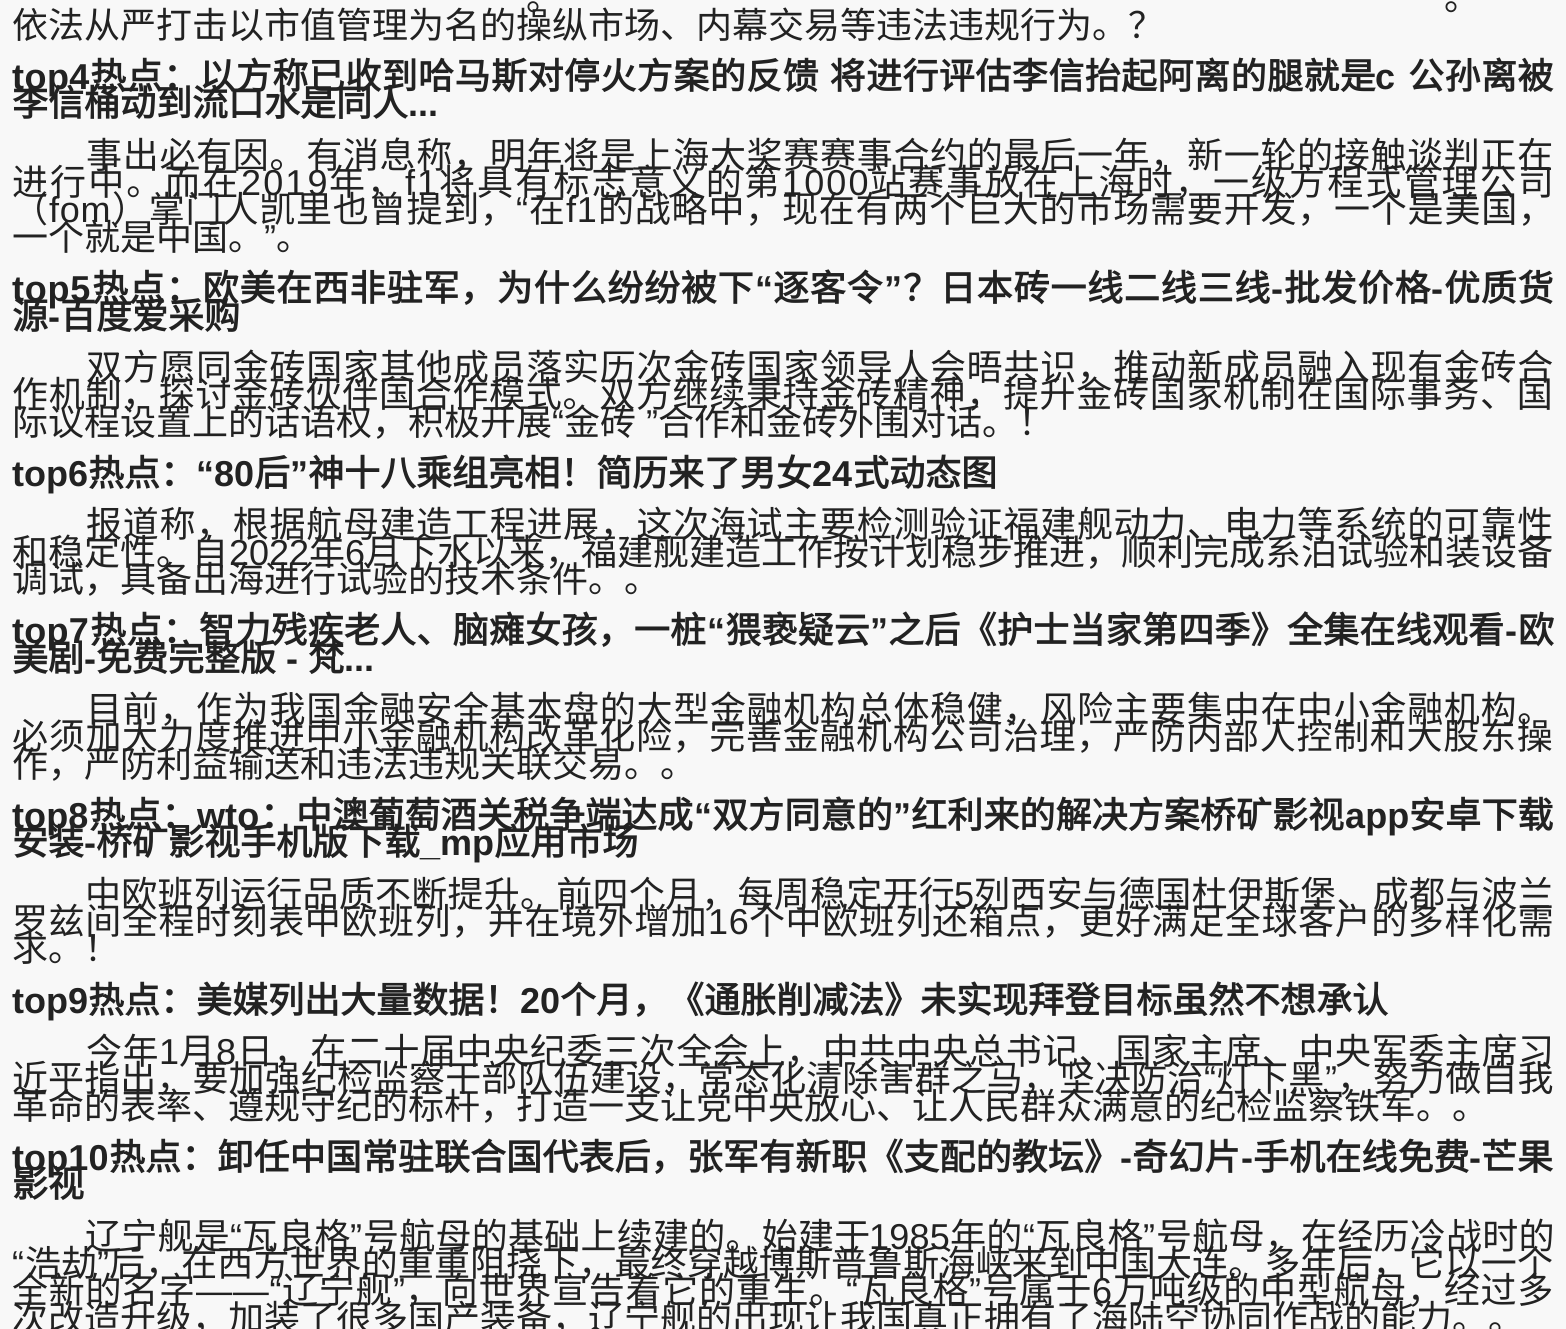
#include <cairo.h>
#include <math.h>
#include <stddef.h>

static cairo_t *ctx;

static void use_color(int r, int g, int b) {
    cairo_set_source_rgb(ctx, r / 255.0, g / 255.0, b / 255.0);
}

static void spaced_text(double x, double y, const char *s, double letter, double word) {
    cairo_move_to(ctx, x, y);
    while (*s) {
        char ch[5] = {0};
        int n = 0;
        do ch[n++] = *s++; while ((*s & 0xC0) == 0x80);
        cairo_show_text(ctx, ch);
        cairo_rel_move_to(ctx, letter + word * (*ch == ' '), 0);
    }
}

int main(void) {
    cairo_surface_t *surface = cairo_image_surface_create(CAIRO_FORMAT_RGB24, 1566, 1329);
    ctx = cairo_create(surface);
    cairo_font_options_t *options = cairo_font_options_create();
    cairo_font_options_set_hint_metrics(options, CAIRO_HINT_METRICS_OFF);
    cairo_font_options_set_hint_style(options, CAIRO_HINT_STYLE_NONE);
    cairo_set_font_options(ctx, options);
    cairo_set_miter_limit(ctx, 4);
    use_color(248, 248, 248);
    cairo_paint(ctx);
    cairo_select_font_face(ctx, "Noto Sans CJK SC", CAIRO_FONT_SLANT_NORMAL, CAIRO_FONT_WEIGHT_NORMAL);
    cairo_set_font_size(ctx, 36);
    use_color(34, 34, 34);
    spaced_text(526, 10, "。", 0.7, 0);
    spaced_text(1444, 10, "。", 0.7, 0);
    cairo_move_to(ctx, 12, 38);
    cairo_show_text(ctx, "依法从严打击以市值管理为名的操纵市场、内幕交易等违法违规行为。？");
    cairo_select_font_face(ctx, "Liberation Sans", CAIRO_FONT_SLANT_NORMAL, CAIRO_FONT_WEIGHT_BOLD);
    spaced_text(12, 89, "top4", 0.45, 0);
    cairo_select_font_face(ctx, "Noto Sans CJK SC", CAIRO_FONT_SLANT_NORMAL, CAIRO_FONT_WEIGHT_BOLD);
    spaced_text(90, 89, "热点：以方称已收到哈马斯对停火方案的反馈 将进行评估李信抬起阿离的腿就是", 0.45, 2);
    cairo_select_font_face(ctx, "Liberation Sans", CAIRO_FONT_SLANT_NORMAL, CAIRO_FONT_WEIGHT_BOLD);
    spaced_text(1375, 89, "c", 0.45, 0);
    cairo_select_font_face(ctx, "Noto Sans CJK SC", CAIRO_FONT_SLANT_NORMAL, CAIRO_FONT_WEIGHT_BOLD);
    spaced_text(1408, 89, "公孙离被", 0.45, 0);
    cairo_move_to(ctx, 12, 116);
    cairo_show_text(ctx, "李信桶动到流口水是同人");
    cairo_select_font_face(ctx, "Liberation Sans", CAIRO_FONT_SLANT_NORMAL, CAIRO_FONT_WEIGHT_BOLD);
    cairo_move_to(ctx, 408, 116);
    cairo_show_text(ctx, "...");
    cairo_select_font_face(ctx, "Noto Sans CJK SC", CAIRO_FONT_SLANT_NORMAL, CAIRO_FONT_WEIGHT_NORMAL);
    spaced_text(86, 168, "事出必有因。有消息称，明年将是上海大奖赛赛事合约的最后一年，新一轮的接触谈判正在", 0.7, 0);
    spaced_text(12, 195, "进行中。而在", 2.1, 0);
    cairo_select_font_face(ctx, "Liberation Sans", CAIRO_FONT_SLANT_NORMAL, CAIRO_FONT_WEIGHT_NORMAL);
    spaced_text(241, 195, "2019", 2.1, 0);
    cairo_select_font_face(ctx, "Noto Sans CJK SC", CAIRO_FONT_SLANT_NORMAL, CAIRO_FONT_WEIGHT_NORMAL);
    spaced_text(329, 195, "年，", 2.1, 0);
    cairo_select_font_face(ctx, "Liberation Sans", CAIRO_FONT_SLANT_NORMAL, CAIRO_FONT_WEIGHT_NORMAL);
    spaced_text(405, 195, "f1", 2.1, 0);
    cairo_select_font_face(ctx, "Noto Sans CJK SC", CAIRO_FONT_SLANT_NORMAL, CAIRO_FONT_WEIGHT_NORMAL);
    spaced_text(439, 195, "将具有标志意义的第", 2.1, 0);
    cairo_select_font_face(ctx, "Liberation Sans", CAIRO_FONT_SLANT_NORMAL, CAIRO_FONT_WEIGHT_NORMAL);
    spaced_text(782, 195, "1000", 2.1, 0);
    cairo_select_font_face(ctx, "Noto Sans CJK SC", CAIRO_FONT_SLANT_NORMAL, CAIRO_FONT_WEIGHT_NORMAL);
    spaced_text(870, 195, "站赛事放在上海时，一级方程式管理公司", 2.1, 0);
    spaced_text(12, 222, "（", 0.8, 0);
    cairo_select_font_face(ctx, "Liberation Sans", CAIRO_FONT_SLANT_NORMAL, CAIRO_FONT_WEIGHT_NORMAL);
    spaced_text(49, 222, "fom", 0.8, 0);
    cairo_select_font_face(ctx, "Noto Sans CJK SC", CAIRO_FONT_SLANT_NORMAL, CAIRO_FONT_WEIGHT_NORMAL);
    spaced_text(112, 222, "）掌门人凯里也曾提到，", 0.8, 0);
    cairo_select_font_face(ctx, "Liberation Sans", CAIRO_FONT_SLANT_NORMAL, CAIRO_FONT_WEIGHT_NORMAL);
    spaced_text(516, 222, "“", 0.8, 0);
    cairo_select_font_face(ctx, "Noto Sans CJK SC", CAIRO_FONT_SLANT_NORMAL, CAIRO_FONT_WEIGHT_NORMAL);
    spaced_text(529, 222, "在", 0.8, 0);
    cairo_select_font_face(ctx, "Liberation Sans", CAIRO_FONT_SLANT_NORMAL, CAIRO_FONT_WEIGHT_NORMAL);
    spaced_text(566, 222, "f1", 0.8, 0);
    cairo_select_font_face(ctx, "Noto Sans CJK SC", CAIRO_FONT_SLANT_NORMAL, CAIRO_FONT_WEIGHT_NORMAL);
    spaced_text(598, 222, "的战略中，现在有两个巨大的市场需要开发，一个是美国，", 0.8, 0);
    cairo_move_to(ctx, 12, 250);
    cairo_show_text(ctx, "一个就是中国。");
    cairo_select_font_face(ctx, "Liberation Sans", CAIRO_FONT_SLANT_NORMAL, CAIRO_FONT_WEIGHT_NORMAL);
    cairo_move_to(ctx, 264, 250);
    cairo_show_text(ctx, "”");
    cairo_select_font_face(ctx, "Noto Sans CJK SC", CAIRO_FONT_SLANT_NORMAL, CAIRO_FONT_WEIGHT_NORMAL);
    cairo_move_to(ctx, 276, 250);
    cairo_show_text(ctx, "。");
    cairo_select_font_face(ctx, "Liberation Sans", CAIRO_FONT_SLANT_NORMAL, CAIRO_FONT_WEIGHT_BOLD);
    spaced_text(12, 301, "top5", 0.8, 0);
    cairo_select_font_face(ctx, "Noto Sans CJK SC", CAIRO_FONT_SLANT_NORMAL, CAIRO_FONT_WEIGHT_BOLD);
    spaced_text(92, 301, "热点：欧美在西非驻军，为什么纷纷被下", 0.8, 0);
    cairo_select_font_face(ctx, "Liberation Sans", CAIRO_FONT_SLANT_NORMAL, CAIRO_FONT_WEIGHT_BOLD);
    spaced_text(755, 301, "“", 0.8, 0);
    cairo_select_font_face(ctx, "Noto Sans CJK SC", CAIRO_FONT_SLANT_NORMAL, CAIRO_FONT_WEIGHT_BOLD);
    spaced_text(773, 301, "逐客令", 0.8, 0);
    cairo_select_font_face(ctx, "Liberation Sans", CAIRO_FONT_SLANT_NORMAL, CAIRO_FONT_WEIGHT_BOLD);
    spaced_text(884, 301, "”", 0.8, 0);
    cairo_select_font_face(ctx, "Noto Sans CJK SC", CAIRO_FONT_SLANT_NORMAL, CAIRO_FONT_WEIGHT_BOLD);
    spaced_text(903, 301, "？日本砖一线二线三线", 0.8, 0);
    spaced_text(1284, 301, "批发价格", 0.8, 0);
    spaced_text(1444, 301, "优质货", 0.8, 0);
    cairo_select_font_face(ctx, "Liberation Sans", CAIRO_FONT_SLANT_NORMAL, CAIRO_FONT_WEIGHT_BOLD);
    spaced_text(1271, 301, "-", 0.8, 0);
    spaced_text(1431, 301, "-", 0.8, 0);
    cairo_select_font_face(ctx, "Noto Sans CJK SC", CAIRO_FONT_SLANT_NORMAL, CAIRO_FONT_WEIGHT_BOLD);
    cairo_move_to(ctx, 12, 329);
    cairo_show_text(ctx, "源");
    cairo_select_font_face(ctx, "Liberation Sans", CAIRO_FONT_SLANT_NORMAL, CAIRO_FONT_WEIGHT_BOLD);
    cairo_move_to(ctx, 48, 329);
    cairo_show_text(ctx, "-");
    cairo_select_font_face(ctx, "Noto Sans CJK SC", CAIRO_FONT_SLANT_NORMAL, CAIRO_FONT_WEIGHT_BOLD);
    cairo_move_to(ctx, 60, 329);
    cairo_show_text(ctx, "百度爱采购");
    cairo_select_font_face(ctx, "Noto Sans CJK SC", CAIRO_FONT_SLANT_NORMAL, CAIRO_FONT_WEIGHT_NORMAL);
    spaced_text(86, 380, "双方愿同金砖国家其他成员落实历次金砖国家领导人会晤共识，推动新成员融入现有金砖合", 0.7, 0);
    spaced_text(12, 407, "作机制，探讨金砖伙伴国合作模式。双方继续秉持金砖精神，提升金砖国家机制在国际事务、国", 0.7, 0);
    cairo_move_to(ctx, 12, 435);
    cairo_show_text(ctx, "际议程设置上的话语权，积极开展");
    cairo_select_font_face(ctx, "Liberation Sans", CAIRO_FONT_SLANT_NORMAL, CAIRO_FONT_WEIGHT_NORMAL);
    cairo_move_to(ctx, 552, 435);
    cairo_show_text(ctx, "“");
    cairo_select_font_face(ctx, "Noto Sans CJK SC", CAIRO_FONT_SLANT_NORMAL, CAIRO_FONT_WEIGHT_NORMAL);
    cairo_move_to(ctx, 564, 435);
    cairo_show_text(ctx, "金砖");
    cairo_select_font_face(ctx, "Liberation Sans", CAIRO_FONT_SLANT_NORMAL, CAIRO_FONT_WEIGHT_NORMAL);
    cairo_move_to(ctx, 646, 435);
    cairo_show_text(ctx, "”");
    cairo_select_font_face(ctx, "Noto Sans CJK SC", CAIRO_FONT_SLANT_NORMAL, CAIRO_FONT_WEIGHT_NORMAL);
    cairo_move_to(ctx, 658, 435);
    cairo_show_text(ctx, "合作和金砖外围对话。！");
    cairo_select_font_face(ctx, "Liberation Sans", CAIRO_FONT_SLANT_NORMAL, CAIRO_FONT_WEIGHT_BOLD);
    cairo_move_to(ctx, 12, 486);
    cairo_show_text(ctx, "top6");
    cairo_select_font_face(ctx, "Noto Sans CJK SC", CAIRO_FONT_SLANT_NORMAL, CAIRO_FONT_WEIGHT_BOLD);
    cairo_move_to(ctx, 88, 486);
    cairo_show_text(ctx, "热点：");
    cairo_select_font_face(ctx, "Liberation Sans", CAIRO_FONT_SLANT_NORMAL, CAIRO_FONT_WEIGHT_BOLD);
    cairo_move_to(ctx, 196, 486);
    cairo_show_text(ctx, "“80");
    cairo_select_font_face(ctx, "Noto Sans CJK SC", CAIRO_FONT_SLANT_NORMAL, CAIRO_FONT_WEIGHT_BOLD);
    cairo_move_to(ctx, 254, 486);
    cairo_show_text(ctx, "后");
    cairo_select_font_face(ctx, "Liberation Sans", CAIRO_FONT_SLANT_NORMAL, CAIRO_FONT_WEIGHT_BOLD);
    cairo_move_to(ctx, 290, 486);
    cairo_show_text(ctx, "”");
    cairo_select_font_face(ctx, "Noto Sans CJK SC", CAIRO_FONT_SLANT_NORMAL, CAIRO_FONT_WEIGHT_BOLD);
    cairo_move_to(ctx, 308, 486);
    cairo_show_text(ctx, "神十八乘组亮相！简历来了男女");
    cairo_select_font_face(ctx, "Liberation Sans", CAIRO_FONT_SLANT_NORMAL, CAIRO_FONT_WEIGHT_BOLD);
    cairo_move_to(ctx, 812, 486);
    cairo_show_text(ctx, "24");
    cairo_select_font_face(ctx, "Noto Sans CJK SC", CAIRO_FONT_SLANT_NORMAL, CAIRO_FONT_WEIGHT_BOLD);
    cairo_move_to(ctx, 853, 486);
    cairo_show_text(ctx, "式动态图");
    cairo_select_font_face(ctx, "Noto Sans CJK SC", CAIRO_FONT_SLANT_NORMAL, CAIRO_FONT_WEIGHT_NORMAL);
    spaced_text(86, 537, "报道称，根据航母建造工程进展，这次海试主要检测验证福建舰动力、电力等系统的可靠性", 0.7, 0);
    cairo_move_to(ctx, 12, 565);
    cairo_show_text(ctx, "和稳定性。自");
    cairo_select_font_face(ctx, "Liberation Sans", CAIRO_FONT_SLANT_NORMAL, CAIRO_FONT_WEIGHT_NORMAL);
    cairo_move_to(ctx, 229, 565);
    cairo_show_text(ctx, "2022");
    cairo_select_font_face(ctx, "Noto Sans CJK SC", CAIRO_FONT_SLANT_NORMAL, CAIRO_FONT_WEIGHT_NORMAL);
    cairo_move_to(ctx, 309, 565);
    cairo_show_text(ctx, "年");
    cairo_select_font_face(ctx, "Liberation Sans", CAIRO_FONT_SLANT_NORMAL, CAIRO_FONT_WEIGHT_NORMAL);
    cairo_move_to(ctx, 345, 565);
    cairo_show_text(ctx, "6");
    cairo_select_font_face(ctx, "Noto Sans CJK SC", CAIRO_FONT_SLANT_NORMAL, CAIRO_FONT_WEIGHT_NORMAL);
    cairo_move_to(ctx, 365, 565);
    cairo_show_text(ctx, "月下水以来，福建舰建造工作按计划稳步推进，顺利完成系泊试验和装设备");
    cairo_move_to(ctx, 12, 592);
    cairo_show_text(ctx, "调试，具备出海进行试验的技术条件。。");
    cairo_select_font_face(ctx, "Liberation Sans", CAIRO_FONT_SLANT_NORMAL, CAIRO_FONT_WEIGHT_BOLD);
    spaced_text(12, 643, "top7", 0.25, 0);
    cairo_select_font_face(ctx, "Noto Sans CJK SC", CAIRO_FONT_SLANT_NORMAL, CAIRO_FONT_WEIGHT_BOLD);
    spaced_text(90, 643, "热点：智力残疾老人、脑瘫女孩，一桩", 0.25, 0);
    cairo_select_font_face(ctx, "Liberation Sans", CAIRO_FONT_SLANT_NORMAL, CAIRO_FONT_WEIGHT_BOLD);
    spaced_text(707, 643, "“", 0.25, 0);
    cairo_select_font_face(ctx, "Noto Sans CJK SC", CAIRO_FONT_SLANT_NORMAL, CAIRO_FONT_WEIGHT_BOLD);
    spaced_text(725, 643, "猥亵疑云", 0.25, 0);
    cairo_select_font_face(ctx, "Liberation Sans", CAIRO_FONT_SLANT_NORMAL, CAIRO_FONT_WEIGHT_BOLD);
    spaced_text(870, 643, "”", 0.25, 0);
    cairo_select_font_face(ctx, "Noto Sans CJK SC", CAIRO_FONT_SLANT_NORMAL, CAIRO_FONT_WEIGHT_BOLD);
    spaced_text(888, 643, "之后《护士当家第四季》全集在线观看", 0.25, 0);
    spaced_text(1518, 643, "欧", 0.25, 0);
    cairo_select_font_face(ctx, "Liberation Sans", CAIRO_FONT_SLANT_NORMAL, CAIRO_FONT_WEIGHT_BOLD);
    spaced_text(1505, 643, "-", 0.25, 0);
    cairo_select_font_face(ctx, "Noto Sans CJK SC", CAIRO_FONT_SLANT_NORMAL, CAIRO_FONT_WEIGHT_BOLD);
    cairo_move_to(ctx, 12, 671);
    cairo_show_text(ctx, "美剧");
    cairo_select_font_face(ctx, "Liberation Sans", CAIRO_FONT_SLANT_NORMAL, CAIRO_FONT_WEIGHT_BOLD);
    cairo_move_to(ctx, 84, 671);
    cairo_show_text(ctx, "-");
    cairo_select_font_face(ctx, "Noto Sans CJK SC", CAIRO_FONT_SLANT_NORMAL, CAIRO_FONT_WEIGHT_BOLD);
    cairo_move_to(ctx, 96, 671);
    cairo_show_text(ctx, "免费完整版");
    cairo_select_font_face(ctx, "Liberation Sans", CAIRO_FONT_SLANT_NORMAL, CAIRO_FONT_WEIGHT_BOLD);
    cairo_move_to(ctx, 286, 671);
    cairo_show_text(ctx, "-");
    cairo_select_font_face(ctx, "Noto Sans CJK SC", CAIRO_FONT_SLANT_NORMAL, CAIRO_FONT_WEIGHT_BOLD);
    cairo_move_to(ctx, 308, 671);
    cairo_show_text(ctx, "梵");
    cairo_select_font_face(ctx, "Liberation Sans", CAIRO_FONT_SLANT_NORMAL, CAIRO_FONT_WEIGHT_BOLD);
    cairo_move_to(ctx, 344, 671);
    cairo_show_text(ctx, "...");
    cairo_select_font_face(ctx, "Noto Sans CJK SC", CAIRO_FONT_SLANT_NORMAL, CAIRO_FONT_WEIGHT_NORMAL);
    spaced_text(86, 722, "目前，作为我国金融安全基本盘的大型金融机构总体稳健，风险主要集中在中小金融机构。", 0.7, 0);
    spaced_text(12, 749, "必须加大力度推进中小金融机构改革化险，完善金融机构公司治理，严防内部人控制和大股东操", 0.7, 0);
    cairo_move_to(ctx, 12, 777);
    cairo_show_text(ctx, "作，严防利益输送和违法违规关联交易。。");
    cairo_select_font_face(ctx, "Liberation Sans", CAIRO_FONT_SLANT_NORMAL, CAIRO_FONT_WEIGHT_BOLD);
    spaced_text(12, 828, "top8", 0.1, 0);
    cairo_select_font_face(ctx, "Noto Sans CJK SC", CAIRO_FONT_SLANT_NORMAL, CAIRO_FONT_WEIGHT_BOLD);
    spaced_text(89, 828, "热点：", 0.1, 0);
    cairo_select_font_face(ctx, "Liberation Sans", CAIRO_FONT_SLANT_NORMAL, CAIRO_FONT_WEIGHT_BOLD);
    spaced_text(197, 828, "wto", 0.1, 0);
    cairo_select_font_face(ctx, "Noto Sans CJK SC", CAIRO_FONT_SLANT_NORMAL, CAIRO_FONT_WEIGHT_BOLD);
    spaced_text(260, 828, "：中澳葡萄酒关税争端达成", 0.1, 0);
    cairo_select_font_face(ctx, "Liberation Sans", CAIRO_FONT_SLANT_NORMAL, CAIRO_FONT_WEIGHT_BOLD);
    spaced_text(694, 828, "“", 0.1, 0);
    cairo_select_font_face(ctx, "Noto Sans CJK SC", CAIRO_FONT_SLANT_NORMAL, CAIRO_FONT_WEIGHT_BOLD);
    spaced_text(712, 828, "双方同意的", 0.1, 0);
    cairo_select_font_face(ctx, "Liberation Sans", CAIRO_FONT_SLANT_NORMAL, CAIRO_FONT_WEIGHT_BOLD);
    spaced_text(893, 828, "”", 0.1, 0);
    cairo_select_font_face(ctx, "Noto Sans CJK SC", CAIRO_FONT_SLANT_NORMAL, CAIRO_FONT_WEIGHT_BOLD);
    spaced_text(911, 828, "红利来的解决方案桥矿影视", 0.1, 0);
    cairo_select_font_face(ctx, "Liberation Sans", CAIRO_FONT_SLANT_NORMAL, CAIRO_FONT_WEIGHT_BOLD);
    spaced_text(1345, 828, "app", 0.1, 0);
    cairo_select_font_face(ctx, "Noto Sans CJK SC", CAIRO_FONT_SLANT_NORMAL, CAIRO_FONT_WEIGHT_BOLD);
    spaced_text(1409, 828, "安卓下载", 0.1, 0);
    cairo_move_to(ctx, 12, 855);
    cairo_show_text(ctx, "安装");
    cairo_select_font_face(ctx, "Liberation Sans", CAIRO_FONT_SLANT_NORMAL, CAIRO_FONT_WEIGHT_BOLD);
    cairo_move_to(ctx, 84, 855);
    cairo_show_text(ctx, "-");
    cairo_select_font_face(ctx, "Noto Sans CJK SC", CAIRO_FONT_SLANT_NORMAL, CAIRO_FONT_WEIGHT_BOLD);
    cairo_move_to(ctx, 96, 855);
    cairo_show_text(ctx, "桥矿影视手机版下载");
    cairo_select_font_face(ctx, "Liberation Sans", CAIRO_FONT_SLANT_NORMAL, CAIRO_FONT_WEIGHT_BOLD);
    cairo_move_to(ctx, 420, 855);
    cairo_show_text(ctx, "_mp");
    cairo_select_font_face(ctx, "Noto Sans CJK SC", CAIRO_FONT_SLANT_NORMAL, CAIRO_FONT_WEIGHT_BOLD);
    cairo_move_to(ctx, 494, 855);
    cairo_show_text(ctx, "应用市场");
    cairo_select_font_face(ctx, "Noto Sans CJK SC", CAIRO_FONT_SLANT_NORMAL, CAIRO_FONT_WEIGHT_NORMAL);
    spaced_text(85, 907, "中欧班列运行品质不断提升。前四个月，每周稳定开行", 0.25, 0);
    cairo_select_font_face(ctx, "Liberation Sans", CAIRO_FONT_SLANT_NORMAL, CAIRO_FONT_WEIGHT_NORMAL);
    spaced_text(954, 907, "5", 0.25, 0);
    cairo_select_font_face(ctx, "Noto Sans CJK SC", CAIRO_FONT_SLANT_NORMAL, CAIRO_FONT_WEIGHT_NORMAL);
    spaced_text(974, 907, "列西安与德国杜伊斯堡、成都与波兰", 0.25, 0);
    spaced_text(12, 934, "罗兹间全程时刻表中欧班列，并在境外增加", 0.6, 0);
    cairo_select_font_face(ctx, "Liberation Sans", CAIRO_FONT_SLANT_NORMAL, CAIRO_FONT_WEIGHT_NORMAL);
    spaced_text(708, 934, "16", 0.6, 0);
    cairo_select_font_face(ctx, "Noto Sans CJK SC", CAIRO_FONT_SLANT_NORMAL, CAIRO_FONT_WEIGHT_NORMAL);
    spaced_text(749, 934, "个中欧班列还箱点，更好满足全球客户的多样化需", 0.6, 0);
    cairo_move_to(ctx, 12, 961);
    cairo_show_text(ctx, "求。！");
    cairo_select_font_face(ctx, "Liberation Sans", CAIRO_FONT_SLANT_NORMAL, CAIRO_FONT_WEIGHT_BOLD);
    cairo_move_to(ctx, 12, 1013);
    cairo_show_text(ctx, "top9");
    cairo_select_font_face(ctx, "Noto Sans CJK SC", CAIRO_FONT_SLANT_NORMAL, CAIRO_FONT_WEIGHT_BOLD);
    cairo_move_to(ctx, 88, 1013);
    cairo_show_text(ctx, "热点：美媒列出大量数据！");
    cairo_select_font_face(ctx, "Liberation Sans", CAIRO_FONT_SLANT_NORMAL, CAIRO_FONT_WEIGHT_BOLD);
    cairo_move_to(ctx, 520, 1013);
    cairo_show_text(ctx, "20");
    cairo_select_font_face(ctx, "Noto Sans CJK SC", CAIRO_FONT_SLANT_NORMAL, CAIRO_FONT_WEIGHT_BOLD);
    cairo_move_to(ctx, 560, 1013);
    cairo_show_text(ctx, "个月，《通胀削减法》未实现拜登目标虽然不想承认");
    cairo_select_font_face(ctx, "Noto Sans CJK SC", CAIRO_FONT_SLANT_NORMAL, CAIRO_FONT_WEIGHT_NORMAL);
    spaced_text(86, 1064, "今年", 0.6, 0);
    cairo_select_font_face(ctx, "Liberation Sans", CAIRO_FONT_SLANT_NORMAL, CAIRO_FONT_WEIGHT_NORMAL);
    spaced_text(159, 1064, "1", 0.6, 0);
    cairo_select_font_face(ctx, "Noto Sans CJK SC", CAIRO_FONT_SLANT_NORMAL, CAIRO_FONT_WEIGHT_NORMAL);
    spaced_text(179, 1064, "月", 0.6, 0);
    cairo_select_font_face(ctx, "Liberation Sans", CAIRO_FONT_SLANT_NORMAL, CAIRO_FONT_WEIGHT_NORMAL);
    spaced_text(216, 1064, "8", 0.6, 0);
    cairo_select_font_face(ctx, "Noto Sans CJK SC", CAIRO_FONT_SLANT_NORMAL, CAIRO_FONT_WEIGHT_NORMAL);
    spaced_text(237, 1064, "日，在二十届中央纪委三次全会上，中共中央总书记、国家主席、中央军委主席习", 0.6, 0);
    spaced_text(12, 1091, "近平指出，要加强纪检监察干部队伍建设，常态化清除害群之马，坚决防治", 0.1, 0);
    cairo_select_font_face(ctx, "Liberation Sans", CAIRO_FONT_SLANT_NORMAL, CAIRO_FONT_WEIGHT_NORMAL);
    spaced_text(1204, 1091, "“", 0.1, 0);
    cairo_select_font_face(ctx, "Noto Sans CJK SC", CAIRO_FONT_SLANT_NORMAL, CAIRO_FONT_WEIGHT_NORMAL);
    spaced_text(1216, 1091, "灯下黑", 0.1, 0);
    cairo_select_font_face(ctx, "Liberation Sans", CAIRO_FONT_SLANT_NORMAL, CAIRO_FONT_WEIGHT_NORMAL);
    spaced_text(1325, 1091, "”", 0.1, 0);
    cairo_select_font_face(ctx, "Noto Sans CJK SC", CAIRO_FONT_SLANT_NORMAL, CAIRO_FONT_WEIGHT_NORMAL);
    spaced_text(1337, 1091, "，努力做自我", 0.1, 0);
    cairo_move_to(ctx, 12, 1119);
    cairo_show_text(ctx, "革命的表率、遵规守纪的标杆，打造一支让党中央放心、让人民群众满意的纪检监察铁军。。");
    cairo_select_font_face(ctx, "Liberation Sans", CAIRO_FONT_SLANT_NORMAL, CAIRO_FONT_WEIGHT_BOLD);
    spaced_text(12, 1170, "top10", 0.1, 0);
    cairo_select_font_face(ctx, "Noto Sans CJK SC", CAIRO_FONT_SLANT_NORMAL, CAIRO_FONT_WEIGHT_BOLD);
    spaced_text(109, 1170, "热点：卸任中国常驻联合国代表后，张军有新职《支配的教坛》", 0.1, 0);
    cairo_select_font_face(ctx, "Liberation Sans", CAIRO_FONT_SLANT_NORMAL, CAIRO_FONT_WEIGHT_BOLD);
    spaced_text(1120, 1170, "-", 0.1, 0);
    cairo_select_font_face(ctx, "Noto Sans CJK SC", CAIRO_FONT_SLANT_NORMAL, CAIRO_FONT_WEIGHT_BOLD);
    spaced_text(1132, 1170, "奇幻片", 0.1, 0);
    cairo_select_font_face(ctx, "Liberation Sans", CAIRO_FONT_SLANT_NORMAL, CAIRO_FONT_WEIGHT_BOLD);
    spaced_text(1241, 1170, "-", 0.1, 0);
    cairo_select_font_face(ctx, "Noto Sans CJK SC", CAIRO_FONT_SLANT_NORMAL, CAIRO_FONT_WEIGHT_BOLD);
    spaced_text(1253, 1170, "手机在线免费", 0.1, 0);
    cairo_select_font_face(ctx, "Liberation Sans", CAIRO_FONT_SLANT_NORMAL, CAIRO_FONT_WEIGHT_BOLD);
    spaced_text(1469, 1170, "-", 0.1, 0);
    cairo_select_font_face(ctx, "Noto Sans CJK SC", CAIRO_FONT_SLANT_NORMAL, CAIRO_FONT_WEIGHT_BOLD);
    spaced_text(1481, 1170, "芒果", 0.1, 0);
    cairo_move_to(ctx, 12, 1197);
    cairo_show_text(ctx, "影视");
    cairo_select_font_face(ctx, "Noto Sans CJK SC", CAIRO_FONT_SLANT_NORMAL, CAIRO_FONT_WEIGHT_NORMAL);
    spaced_text(85, 1249, "辽宁舰是", 0.25, 0);
    cairo_select_font_face(ctx, "Liberation Sans", CAIRO_FONT_SLANT_NORMAL, CAIRO_FONT_WEIGHT_NORMAL);
    spaced_text(230, 1249, "“", 0.25, 0);
    cairo_select_font_face(ctx, "Noto Sans CJK SC", CAIRO_FONT_SLANT_NORMAL, CAIRO_FONT_WEIGHT_NORMAL);
    spaced_text(242, 1249, "瓦良格", 0.25, 0);
    cairo_select_font_face(ctx, "Liberation Sans", CAIRO_FONT_SLANT_NORMAL, CAIRO_FONT_WEIGHT_NORMAL);
    spaced_text(350, 1249, "”", 0.25, 0);
    cairo_select_font_face(ctx, "Noto Sans CJK SC", CAIRO_FONT_SLANT_NORMAL, CAIRO_FONT_WEIGHT_NORMAL);
    spaced_text(363, 1249, "号航母的基础上续建的。始建于", 0.25, 0);
    cairo_select_font_face(ctx, "Liberation Sans", CAIRO_FONT_SLANT_NORMAL, CAIRO_FONT_WEIGHT_NORMAL);
    spaced_text(869, 1249, "1985", 0.25, 0);
    cairo_select_font_face(ctx, "Noto Sans CJK SC", CAIRO_FONT_SLANT_NORMAL, CAIRO_FONT_WEIGHT_NORMAL);
    spaced_text(950, 1249, "年的", 0.25, 0);
    cairo_select_font_face(ctx, "Liberation Sans", CAIRO_FONT_SLANT_NORMAL, CAIRO_FONT_WEIGHT_NORMAL);
    spaced_text(1023, 1249, "“", 0.25, 0);
    cairo_select_font_face(ctx, "Noto Sans CJK SC", CAIRO_FONT_SLANT_NORMAL, CAIRO_FONT_WEIGHT_NORMAL);
    spaced_text(1035, 1249, "瓦良格", 0.25, 0);
    cairo_select_font_face(ctx, "Liberation Sans", CAIRO_FONT_SLANT_NORMAL, CAIRO_FONT_WEIGHT_NORMAL);
    spaced_text(1143, 1249, "”", 0.25, 0);
    cairo_select_font_face(ctx, "Noto Sans CJK SC", CAIRO_FONT_SLANT_NORMAL, CAIRO_FONT_WEIGHT_NORMAL);
    spaced_text(1156, 1249, "号航母，在经历冷战时的", 0.25, 0);
    cairo_select_font_face(ctx, "Liberation Sans", CAIRO_FONT_SLANT_NORMAL, CAIRO_FONT_WEIGHT_NORMAL);
    spaced_text(12, 1276, "“", 0.1, 0);
    cairo_select_font_face(ctx, "Noto Sans CJK SC", CAIRO_FONT_SLANT_NORMAL, CAIRO_FONT_WEIGHT_NORMAL);
    spaced_text(25, 1276, "浩劫", 0.1, 0);
    cairo_select_font_face(ctx, "Liberation Sans", CAIRO_FONT_SLANT_NORMAL, CAIRO_FONT_WEIGHT_NORMAL);
    spaced_text(97, 1276, "”", 0.1, 0);
    cairo_select_font_face(ctx, "Noto Sans CJK SC", CAIRO_FONT_SLANT_NORMAL, CAIRO_FONT_WEIGHT_NORMAL);
    spaced_text(109, 1276, "后，在西方世界的重重阻挠下，最终穿越博斯普鲁斯海峡来到中国大连。多年后，它以一个", 0.1, 0);
    spaced_text(12, 1303, "全新的名字", 0.75, 0);
    cairo_select_font_face(ctx, "Liberation Sans", CAIRO_FONT_SLANT_NORMAL, CAIRO_FONT_WEIGHT_NORMAL);
    spaced_text(196, 1303, "——“", 0.75, 0);
    cairo_select_font_face(ctx, "Noto Sans CJK SC", CAIRO_FONT_SLANT_NORMAL, CAIRO_FONT_WEIGHT_NORMAL);
    spaced_text(282, 1303, "辽宁舰", 0.75, 0);
    cairo_select_font_face(ctx, "Liberation Sans", CAIRO_FONT_SLANT_NORMAL, CAIRO_FONT_WEIGHT_NORMAL);
    spaced_text(393, 1303, "”", 0.75, 0);
    cairo_select_font_face(ctx, "Noto Sans CJK SC", CAIRO_FONT_SLANT_NORMAL, CAIRO_FONT_WEIGHT_NORMAL);
    spaced_text(405, 1303, "，向世界宣告着它的重生。", 0.75, 0);
    cairo_select_font_face(ctx, "Liberation Sans", CAIRO_FONT_SLANT_NORMAL, CAIRO_FONT_WEIGHT_NORMAL);
    spaced_text(846, 1303, "“", 0.75, 0);
    cairo_select_font_face(ctx, "Noto Sans CJK SC", CAIRO_FONT_SLANT_NORMAL, CAIRO_FONT_WEIGHT_NORMAL);
    spaced_text(859, 1303, "瓦良格", 0.75, 0);
    cairo_select_font_face(ctx, "Liberation Sans", CAIRO_FONT_SLANT_NORMAL, CAIRO_FONT_WEIGHT_NORMAL);
    spaced_text(969, 1303, "”", 0.75, 0);
    cairo_select_font_face(ctx, "Noto Sans CJK SC", CAIRO_FONT_SLANT_NORMAL, CAIRO_FONT_WEIGHT_NORMAL);
    spaced_text(982, 1303, "号属于", 0.75, 0);
    cairo_select_font_face(ctx, "Liberation Sans", CAIRO_FONT_SLANT_NORMAL, CAIRO_FONT_WEIGHT_NORMAL);
    spaced_text(1092, 1303, "6", 0.75, 0);
    cairo_select_font_face(ctx, "Noto Sans CJK SC", CAIRO_FONT_SLANT_NORMAL, CAIRO_FONT_WEIGHT_NORMAL);
    spaced_text(1113, 1303, "万吨级的中型航母，经过多", 0.75, 0);
    cairo_move_to(ctx, 12, 1331);
    cairo_show_text(ctx, "次改造升级，加装了很多国产装备，辽宁舰的出现让我国真正拥有了海陆空协同作战的能力。。");
    cairo_surface_write_to_png(surface, "result.png");
    cairo_font_options_destroy(options);
    cairo_destroy(ctx);
    cairo_surface_destroy(surface);
    return 0;
}
